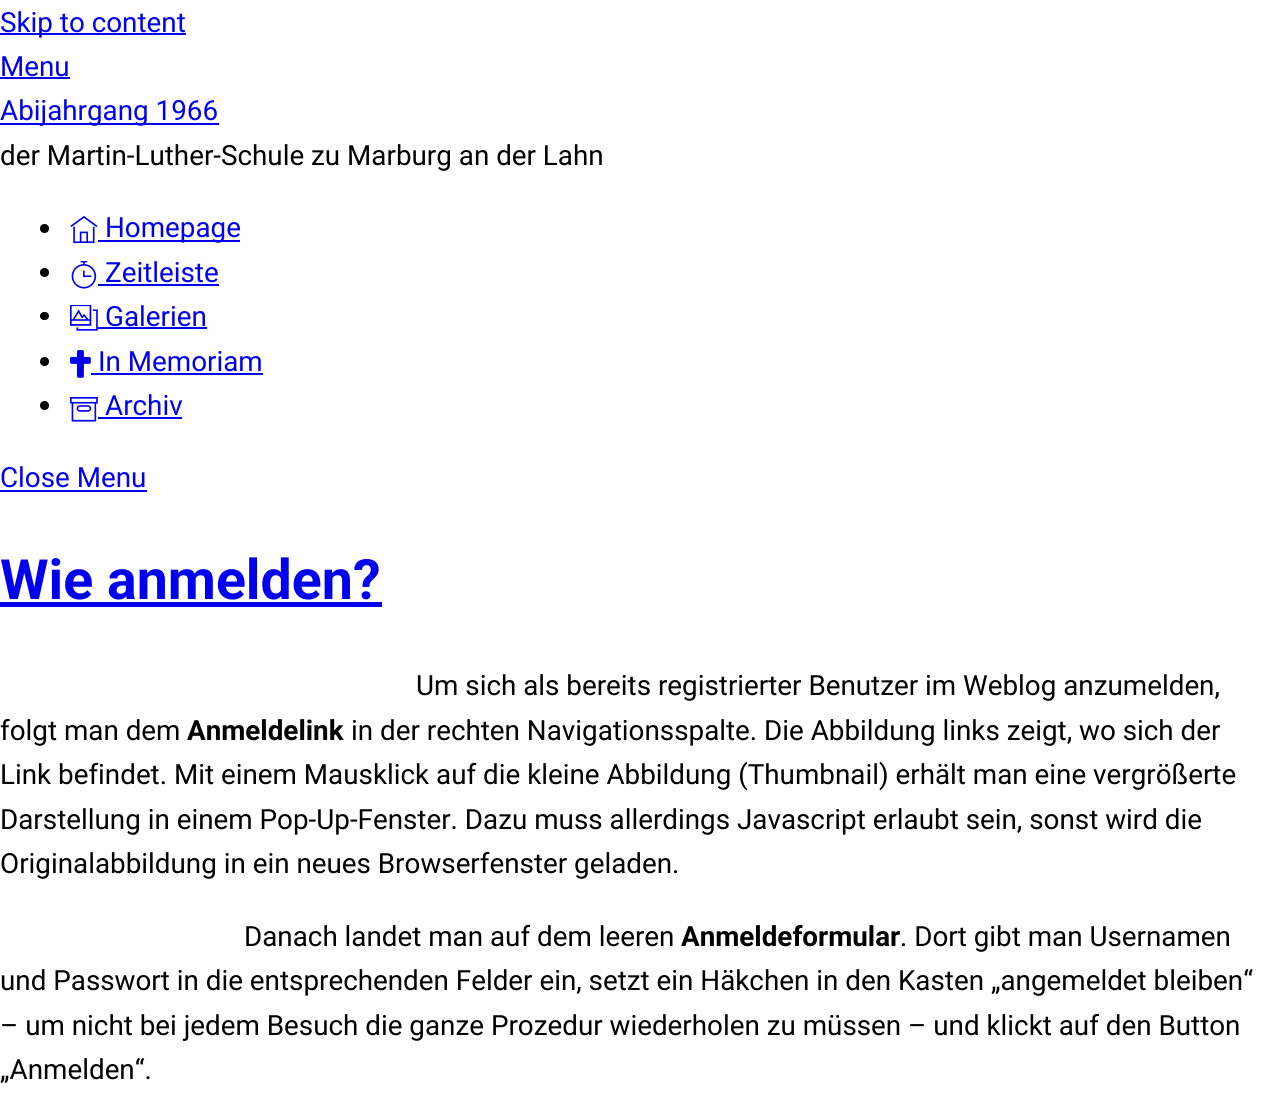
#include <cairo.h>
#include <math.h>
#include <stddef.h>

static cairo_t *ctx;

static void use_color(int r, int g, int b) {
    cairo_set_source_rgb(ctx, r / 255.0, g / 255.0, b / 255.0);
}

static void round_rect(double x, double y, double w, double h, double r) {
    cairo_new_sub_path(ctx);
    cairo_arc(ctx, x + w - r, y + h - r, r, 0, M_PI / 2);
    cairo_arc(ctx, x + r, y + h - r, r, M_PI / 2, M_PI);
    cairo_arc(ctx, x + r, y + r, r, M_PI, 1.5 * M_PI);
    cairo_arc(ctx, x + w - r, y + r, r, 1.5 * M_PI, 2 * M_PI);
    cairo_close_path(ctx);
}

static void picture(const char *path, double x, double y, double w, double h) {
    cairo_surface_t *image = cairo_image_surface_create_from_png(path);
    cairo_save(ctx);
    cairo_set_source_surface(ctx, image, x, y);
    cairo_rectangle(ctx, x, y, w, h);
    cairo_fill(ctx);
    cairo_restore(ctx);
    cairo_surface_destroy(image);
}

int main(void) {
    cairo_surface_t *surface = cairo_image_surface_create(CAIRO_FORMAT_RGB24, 1263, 1113);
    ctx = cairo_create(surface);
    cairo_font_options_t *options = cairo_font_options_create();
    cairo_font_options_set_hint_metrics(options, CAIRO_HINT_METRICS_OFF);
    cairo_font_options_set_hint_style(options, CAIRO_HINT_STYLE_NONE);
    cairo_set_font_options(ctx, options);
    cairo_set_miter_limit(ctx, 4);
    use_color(255, 255, 255);
    cairo_paint(ctx);
    use_color(0, 0, 238);
    cairo_rectangle(ctx, 0, 33, 186, 2);
    cairo_fill(ctx);
    cairo_select_font_face(ctx, "Roboto", CAIRO_FONT_SLANT_NORMAL, CAIRO_FONT_WEIGHT_NORMAL);
    cairo_set_font_size(ctx, 27.8);
    cairo_move_to(ctx, 0, 32);
    cairo_show_text(ctx, "Skip to content");
    cairo_move_to(ctx, 0, 76);
    cairo_show_text(ctx, "Menu");
    cairo_rectangle(ctx, 0, 77, 70, 2);
    cairo_fill(ctx);
    cairo_rectangle(ctx, 0, 123, 219, 2);
    cairo_fill(ctx);
    cairo_move_to(ctx, 0, 120);
    cairo_show_text(ctx, "Abijahrgang 1966");
    use_color(0, 0, 0);
    cairo_move_to(ctx, 0, 165);
    cairo_show_text(ctx, "der Martin-Luther-Schule zu Marburg an der Lahn");
    cairo_new_path(ctx);
    cairo_arc(ctx, 44.5, 228.5, 4.5, 0, 2 * M_PI);
    cairo_fill(ctx);
    picture("img1.png", 70, 215, 28, 28);
    use_color(0, 0, 238);
    cairo_rectangle(ctx, 98, 240, 142, 2);
    cairo_fill(ctx);
    cairo_move_to(ctx, 105, 237);
    cairo_show_text(ctx, "Homepage");
    use_color(0, 0, 0);
    cairo_new_path(ctx);
    cairo_arc(ctx, 44.5, 272.5, 4.5, 0, 2 * M_PI);
    cairo_fill(ctx);
    picture("img2.png", 71, 261, 26, 28);
    use_color(0, 0, 238);
    cairo_move_to(ctx, 105, 282);
    cairo_show_text(ctx, "Zeitleiste");
    cairo_rectangle(ctx, 98, 284, 121, 2);
    cairo_fill(ctx);
    use_color(0, 0, 0);
    round_rect(40, 312, 9, 8, 4);
    cairo_fill(ctx);
    picture("img3.png", 70, 305, 28, 26);
    use_color(0, 0, 238);
    cairo_move_to(ctx, 105, 326);
    cairo_show_text(ctx, "Galerien");
    cairo_rectangle(ctx, 98, 327, 109, 2);
    cairo_fill(ctx);
    use_color(0, 0, 0);
    cairo_arc(ctx, 44.5, 361.5, 4.5, 0, 2 * M_PI);
    cairo_fill(ctx);
    picture("img4.png", 70, 350, 21, 28);
    use_color(0, 0, 238);
    cairo_move_to(ctx, 98, 371);
    cairo_show_text(ctx, "In Memoriam");
    cairo_rectangle(ctx, 91, 373, 172, 2);
    cairo_fill(ctx);
    use_color(0, 0, 0);
    cairo_arc(ctx, 44.5, 405.5, 4.5, 0, 2 * M_PI);
    cairo_fill(ctx);
    picture("img5.png", 70, 397, 28, 25);
    use_color(0, 0, 238);
    cairo_move_to(ctx, 105, 415);
    cairo_show_text(ctx, "Archiv");
    cairo_rectangle(ctx, 98, 417, 84, 2);
    cairo_fill(ctx);
    cairo_move_to(ctx, 0, 487);
    cairo_show_text(ctx, "Close Menu");
    cairo_rectangle(ctx, 0, 490, 147, 2);
    cairo_fill(ctx);
    cairo_select_font_face(ctx, "Roboto", CAIRO_FONT_SLANT_NORMAL, CAIRO_FONT_WEIGHT_BOLD);
    cairo_set_font_size(ctx, 55.5);
    cairo_move_to(ctx, 0, 599);
    cairo_show_text(ctx, "Wie anmelden?");
    cairo_rectangle(ctx, 0, 602, 382, 5);
    cairo_fill(ctx);
    cairo_select_font_face(ctx, "Roboto", CAIRO_FONT_SLANT_NORMAL, CAIRO_FONT_WEIGHT_NORMAL);
    cairo_set_font_size(ctx, 27.8);
    use_color(0, 0, 0);
    cairo_move_to(ctx, 416, 695);
    cairo_show_text(ctx, "Um sich als bereits registrierter Benutzer im Weblog anzumelden,");
    cairo_move_to(ctx, 0, 740);
    cairo_show_text(ctx, "folgt man dem");
    cairo_select_font_face(ctx, "Roboto", CAIRO_FONT_SLANT_NORMAL, CAIRO_FONT_WEIGHT_BOLD);
    cairo_move_to(ctx, 187, 740);
    cairo_show_text(ctx, "Anmeldelink");
    cairo_select_font_face(ctx, "Roboto", CAIRO_FONT_SLANT_NORMAL, CAIRO_FONT_WEIGHT_NORMAL);
    cairo_move_to(ctx, 351, 740);
    cairo_show_text(ctx, "in der rechten Navigationsspalte. Die Abbildung links zeigt, wo sich der");
    cairo_move_to(ctx, 0, 784);
    cairo_show_text(ctx, "Link befindet. Mit einem Mausklick auf die kleine Abbildung (Thumbnail) erhält man eine vergrößerte");
    cairo_move_to(ctx, 0, 829);
    cairo_show_text(ctx, "Darstellung in einem Pop-Up-Fenster. Dazu muss allerdings Javascript erlaubt sein, sonst wird die");
    cairo_move_to(ctx, 0, 873);
    cairo_show_text(ctx, "Originalabbildung in ein neues Browserfenster geladen.");
    cairo_move_to(ctx, 244, 946);
    cairo_show_text(ctx, "Danach landet man auf dem leeren");
    cairo_select_font_face(ctx, "Roboto", CAIRO_FONT_SLANT_NORMAL, CAIRO_FONT_WEIGHT_BOLD);
    cairo_move_to(ctx, 681, 946);
    cairo_show_text(ctx, "Anmeldeformular");
    cairo_select_font_face(ctx, "Roboto", CAIRO_FONT_SLANT_NORMAL, CAIRO_FONT_WEIGHT_NORMAL);
    cairo_move_to(ctx, 900, 946);
    cairo_show_text(ctx, ". Dort gibt man Usernamen");
    cairo_move_to(ctx, 0, 990);
    cairo_show_text(ctx, "und Passwort in die entsprechenden Felder ein, setzt ein Häkchen in den Kasten „angemeldet bleiben“");
    cairo_move_to(ctx, 0, 1035);
    cairo_show_text(ctx, "– um nicht bei jedem Besuch die ganze Prozedur wiederholen zu müssen – und klickt auf den Button");
    cairo_move_to(ctx, 0, 1079);
    cairo_show_text(ctx, "„Anmelden“.");
    cairo_surface_write_to_png(surface, "result.png");
    cairo_font_options_destroy(options);
    cairo_destroy(ctx);
    cairo_surface_destroy(surface);
    return 0;
}
